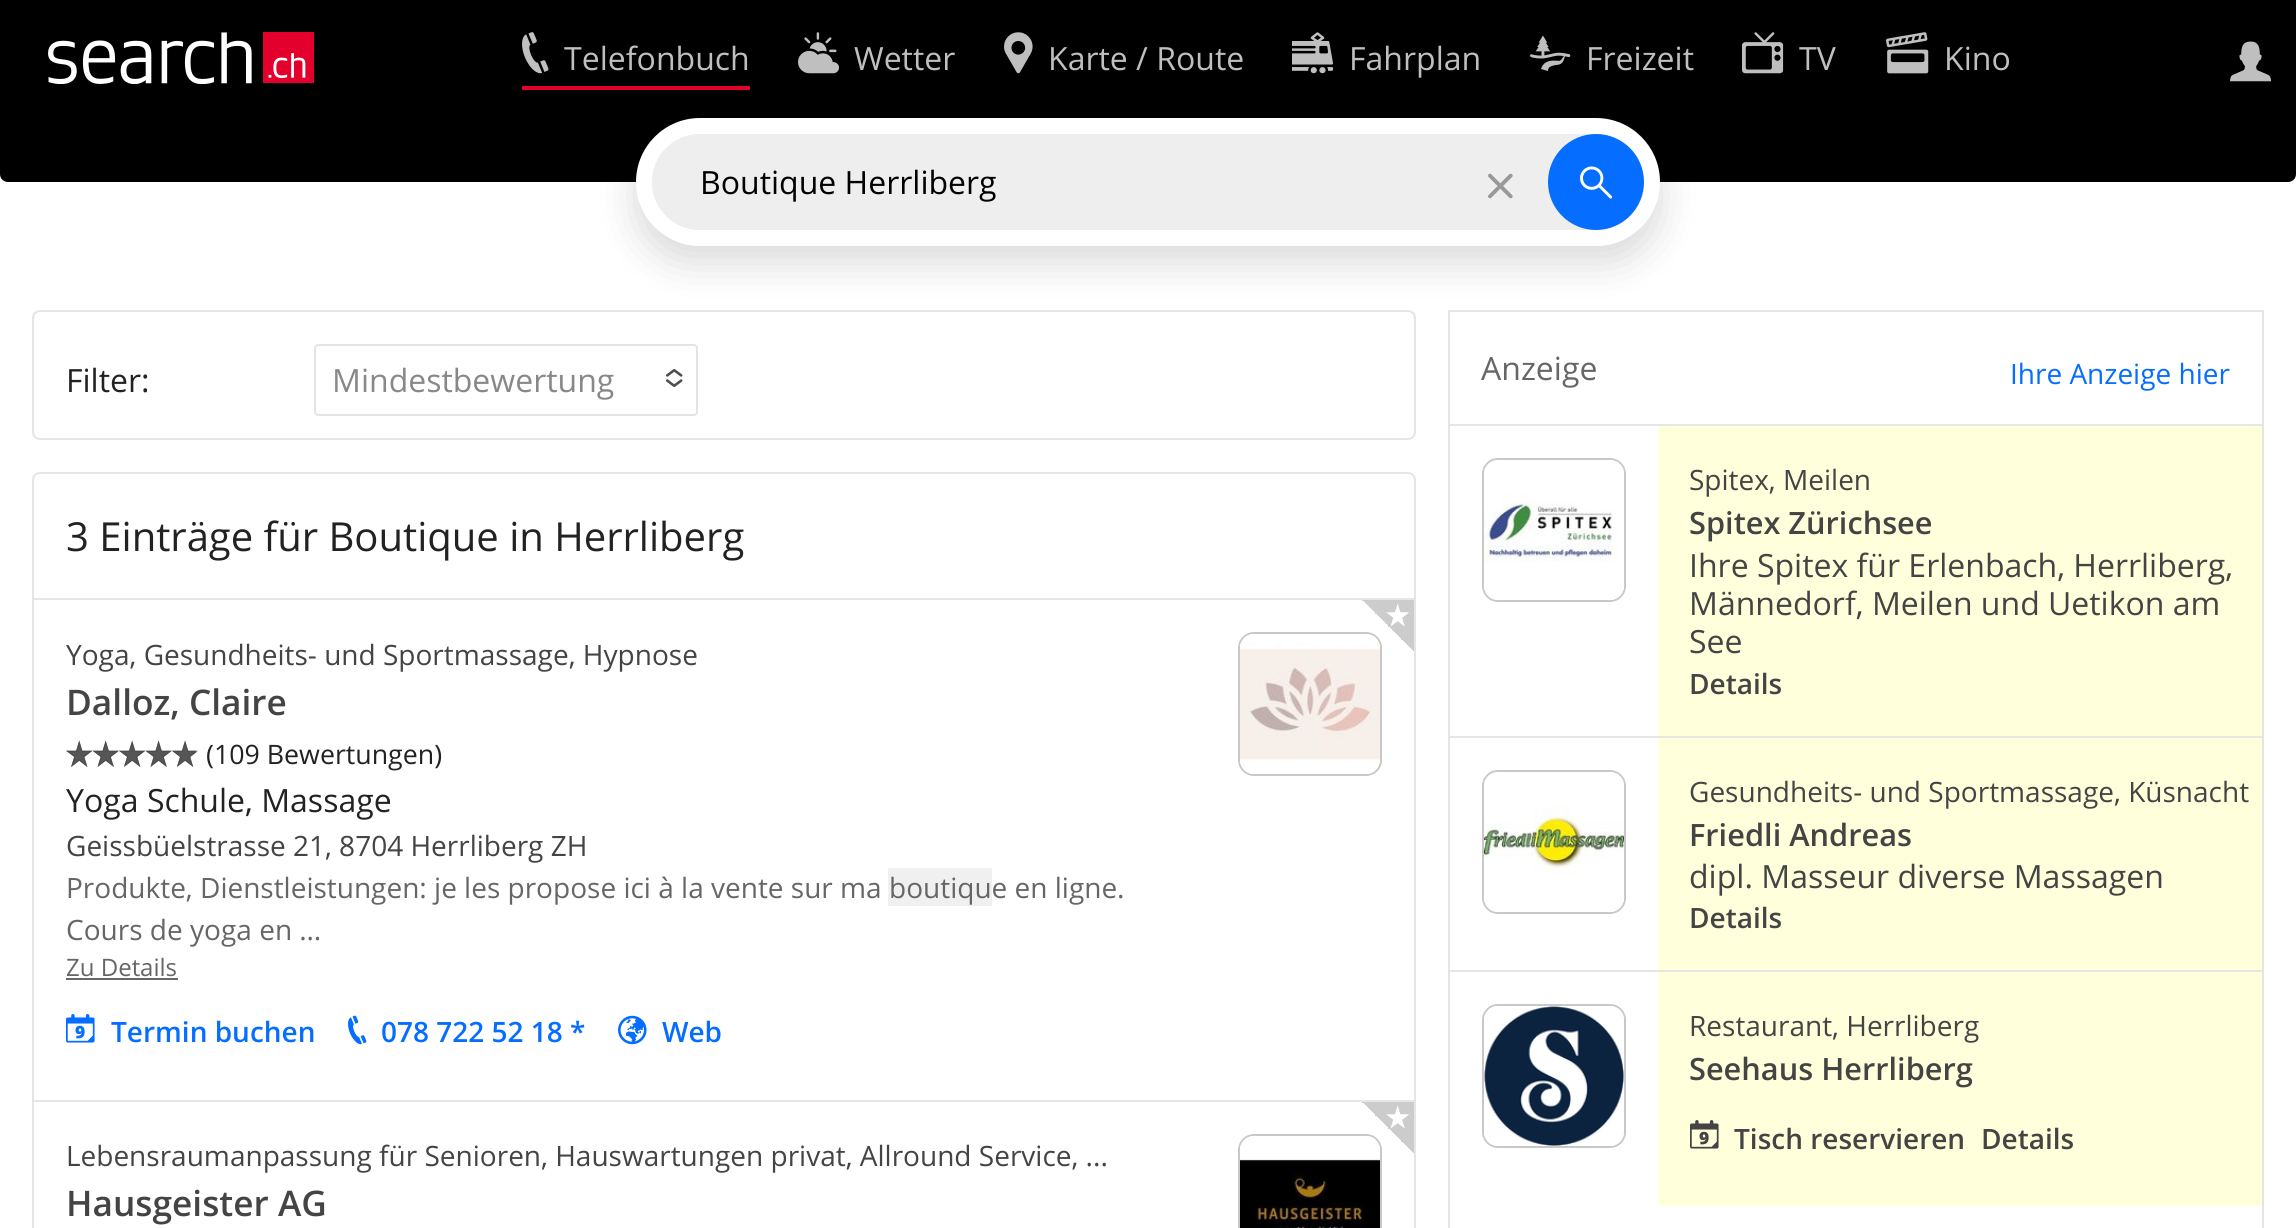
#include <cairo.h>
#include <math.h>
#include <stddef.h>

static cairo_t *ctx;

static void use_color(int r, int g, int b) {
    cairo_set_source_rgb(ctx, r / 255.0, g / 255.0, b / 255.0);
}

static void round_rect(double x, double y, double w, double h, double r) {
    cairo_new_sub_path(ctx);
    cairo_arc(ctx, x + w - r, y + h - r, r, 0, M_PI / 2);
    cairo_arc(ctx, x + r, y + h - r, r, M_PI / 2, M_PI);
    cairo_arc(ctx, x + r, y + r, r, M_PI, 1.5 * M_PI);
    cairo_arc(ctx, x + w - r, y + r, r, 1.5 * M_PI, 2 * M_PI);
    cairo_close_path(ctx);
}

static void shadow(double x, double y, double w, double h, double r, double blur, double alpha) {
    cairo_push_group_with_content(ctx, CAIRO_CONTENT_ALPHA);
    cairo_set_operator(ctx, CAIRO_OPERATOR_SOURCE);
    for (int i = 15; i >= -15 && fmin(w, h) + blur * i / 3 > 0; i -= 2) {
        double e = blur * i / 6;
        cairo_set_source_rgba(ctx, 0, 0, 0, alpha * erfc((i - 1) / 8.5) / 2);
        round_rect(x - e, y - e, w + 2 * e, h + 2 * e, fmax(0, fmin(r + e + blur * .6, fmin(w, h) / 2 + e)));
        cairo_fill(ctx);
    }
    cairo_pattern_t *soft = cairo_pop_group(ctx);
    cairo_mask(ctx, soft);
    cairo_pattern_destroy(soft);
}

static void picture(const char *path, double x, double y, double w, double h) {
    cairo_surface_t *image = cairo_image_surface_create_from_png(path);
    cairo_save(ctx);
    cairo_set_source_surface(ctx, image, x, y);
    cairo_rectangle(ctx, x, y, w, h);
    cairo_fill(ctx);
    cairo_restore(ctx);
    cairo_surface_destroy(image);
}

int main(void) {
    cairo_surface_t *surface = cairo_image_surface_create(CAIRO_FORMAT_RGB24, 2296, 1228);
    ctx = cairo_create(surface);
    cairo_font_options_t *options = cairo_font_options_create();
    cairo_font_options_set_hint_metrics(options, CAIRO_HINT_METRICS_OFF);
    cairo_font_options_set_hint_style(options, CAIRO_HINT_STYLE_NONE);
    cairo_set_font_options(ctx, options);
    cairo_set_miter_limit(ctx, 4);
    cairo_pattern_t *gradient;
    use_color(255, 255, 255);
    cairo_paint(ctx);
    use_color(0, 0, 0);
    cairo_rectangle(ctx, 0, 0, 2296, 118);
    cairo_fill(ctx);
    picture("img1.png", 48, 32, 266, 52);
    use_color(228, 0, 44);
    cairo_rectangle(ctx, 522, 86, 228, 4);
    cairo_fill(ctx);
    picture("img2.png", 522, 32, 27, 42);
    cairo_select_font_face(ctx, "Open Sans", CAIRO_FONT_SLANT_NORMAL, CAIRO_FONT_WEIGHT_NORMAL);
    cairo_set_font_size(ctx, 32);
    use_color(191, 191, 191);
    cairo_move_to(ctx, 564, 70);
    cairo_show_text(ctx, "Telefonbuch");
    picture("img3.png", 798, 32, 42, 42);
    cairo_move_to(ctx, 854, 70);
    cairo_show_text(ctx, "Wetter");
    picture("img4.png", 1004, 32, 29, 42);
    cairo_move_to(ctx, 1048, 70);
    cairo_show_text(ctx, "Karte / Route");
    picture("img5.png", 1292, 32, 42, 42);
    cairo_move_to(ctx, 1349, 70);
    cairo_show_text(ctx, "Fahrplan");
    picture("img6.png", 1530, 35, 41, 36);
    cairo_move_to(ctx, 1586, 70);
    cairo_show_text(ctx, "Freizeit");
    picture("img7.png", 1742, 32, 42, 42);
    cairo_move_to(ctx, 1799, 70);
    cairo_show_text(ctx, "TV");
    picture("img8.png", 1886, 32, 43, 42);
    cairo_move_to(ctx, 1944, 70);
    cairo_show_text(ctx, "Kino");
    picture("img9.png", 2230, 41, 42, 41);
    use_color(0, 0, 0);
    cairo_new_path(ctx);
    cairo_move_to(ctx, 0, 118);
    cairo_line_to(ctx, 2296, 118);
    cairo_line_to(ctx, 2296, 174);
    cairo_curve_to(ctx, 2296, 178.5, 2292.5, 182, 2288, 182);
    cairo_line_to(ctx, 8, 182);
    cairo_curve_to(ctx, 3.5, 182, 0, 178.5, 0, 174);
    cairo_close_path(ctx);
    cairo_fill(ctx);
    round_rect(33, 311, 1382, 128, 7);
    use_color(229, 229, 229);
    cairo_stroke(ctx);
    cairo_rectangle(ctx, 1449, 311, 814, 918);
    cairo_stroke(ctx);
    use_color(0, 0, 0);
    shadow(636, 134, 1024, 128, 64, 20, 0.15);
    use_color(255, 255, 255);
    round_rect(636, 118, 1024, 128, 64);
    cairo_fill(ctx);
    use_color(238, 238, 238);
    round_rect(652, 134, 992, 96, 48);
    cairo_fill(ctx);
    round_rect(652, 134, 800, 96, 48);
    cairo_fill(ctx);
    use_color(0, 0, 0);
    cairo_move_to(ctx, 700, 194);
    cairo_show_text(ctx, "Boutique Herrliberg");
    picture("img10.png", 1488, 173, 25, 26);
    use_color(5, 109, 255);
    cairo_arc(ctx, 1596, 182, 48, 0, 2 * M_PI);
    cairo_fill(ctx);
    picture("img11.png", 1580, 166, 33, 33);
    use_color(34, 34, 34);
    cairo_move_to(ctx, 66, 392);
    cairo_show_text(ctx, "Filter:");
    round_rect(315, 345, 382, 70, 3);
    use_color(228, 228, 228);
    cairo_stroke(ctx);
    use_color(136, 136, 136);
    cairo_move_to(ctx, 332, 392);
    cairo_show_text(ctx, "Mindestbewertung");
    picture("img12.png", 666, 369, 17, 18);
    round_rect(33, 473, 1382, 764, 7);
    use_color(229, 229, 229);
    cairo_stroke(ctx);
    cairo_set_font_size(ctx, 40);
    use_color(34, 34, 34);
    cairo_move_to(ctx, 66, 551);
    cairo_show_text(ctx, "3 Einträge für Boutique in Herrliberg");
    use_color(230, 230, 230);
    cairo_rectangle(ctx, 34, 598, 1380, 2);
    cairo_fill(ctx);
    round_rect(1239, 633, 142, 142, 15);
    use_color(200, 200, 200);
    cairo_stroke(ctx);
    picture("img19.png", 1240, 634, 140, 140);
    gradient = cairo_pattern_create_linear(1362, 652, 1414, 600);
    cairo_pattern_add_color_stop_rgba(gradient, 0, 1, 1, 1, 0);
    cairo_pattern_add_color_stop_rgba(gradient, 0.5, 0.8, 0.8, 0.8, 0);
    cairo_pattern_add_color_stop_rgba(gradient, 0.5, 0.8, 0.8, 0.8, 1);
    cairo_pattern_add_color_stop_rgba(gradient, 1, 0.8, 0.8, 0.8, 1);
    cairo_set_source(ctx, gradient);
    cairo_pattern_destroy(gradient);
    cairo_rectangle(ctx, 1362, 600, 52, 51);
    cairo_fill(ctx);
    picture("img13.png", 1386, 603, 23, 24);
    cairo_set_font_size(ctx, 28);
    use_color(68, 68, 68);
    cairo_move_to(ctx, 66, 665);
    cairo_show_text(ctx, "Yoga, Gesundheits- und Sportmassage, Hypnose");
    cairo_select_font_face(ctx, "Open Sans SemiBold", CAIRO_FONT_SLANT_NORMAL, CAIRO_FONT_WEIGHT_NORMAL);
    cairo_set_font_size(ctx, 35.25);
    cairo_move_to(ctx, 66, 715);
    cairo_show_text(ctx, "Dalloz, Claire");
    picture("img14.png", 66, 740, 132, 27);
    picture("img15.png", 66, 740, 130, 27);
    cairo_select_font_face(ctx, "Open Sans", CAIRO_FONT_SLANT_NORMAL, CAIRO_FONT_WEIGHT_NORMAL);
    cairo_set_font_size(ctx, 26.75);
    use_color(34, 34, 34);
    cairo_move_to(ctx, 206, 764);
    cairo_show_text(ctx, "(109 Bewertungen)");
    cairo_set_font_size(ctx, 32);
    cairo_move_to(ctx, 66, 812);
    cairo_show_text(ctx, "Yoga Schule, Massage");
    cairo_set_font_size(ctx, 28);
    use_color(68, 68, 68);
    cairo_move_to(ctx, 66, 856);
    cairo_show_text(ctx, "Geissbüelstrasse 21, 8704 Herrliberg ZH");
    use_color(102, 102, 102);
    cairo_move_to(ctx, 66, 898);
    cairo_show_text(ctx, "Produkte, Dienstleistungen: je les propose ici à la vente sur ma");
    use_color(240, 240, 240);
    cairo_rectangle(ctx, 888, 868, 104, 38);
    cairo_fill(ctx);
    use_color(102, 102, 102);
    cairo_move_to(ctx, 889, 898);
    cairo_show_text(ctx, "boutique en ligne.");
    cairo_move_to(ctx, 66, 940);
    cairo_show_text(ctx, "Cours de yoga en …");
    cairo_set_font_size(ctx, 24);
    cairo_move_to(ctx, 66, 976);
    cairo_show_text(ctx, "Zu Details");
    cairo_rectangle(ctx, 66, 978, 112, 2);
    cairo_fill(ctx);
    picture("img16.png", 66, 1014, 29, 29);
    cairo_select_font_face(ctx, "Open Sans SemiBold", CAIRO_FONT_SLANT_NORMAL, CAIRO_FONT_WEIGHT_NORMAL);
    cairo_set_font_size(ctx, 28);
    use_color(5, 109, 255);
    cairo_move_to(ctx, 111, 1042);
    cairo_show_text(ctx, "Termin buchen");
    picture("img17.png", 348, 1015, 19, 30);
    cairo_move_to(ctx, 381, 1042);
    cairo_show_text(ctx, "078 722 52 18 *");
    picture("img18.png", 618, 1015, 29, 30);
    cairo_move_to(ctx, 662, 1042);
    cairo_show_text(ctx, "Web");
    use_color(230, 230, 230);
    cairo_rectangle(ctx, 34, 1100, 1380, 2);
    cairo_fill(ctx);
    round_rect(1239, 1135, 142, 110, 15);
    use_color(200, 200, 200);
    cairo_stroke(ctx);
    picture("img20.png", 1240, 1136, 140, 92);
    gradient = cairo_pattern_create_linear(1362, 1154, 1414, 1102);
    cairo_pattern_add_color_stop_rgba(gradient, 0, 1, 1, 1, 0);
    cairo_pattern_add_color_stop_rgba(gradient, 0.5, 0.8, 0.8, 0.8, 0);
    cairo_pattern_add_color_stop_rgba(gradient, 0.5, 0.8, 0.8, 0.8, 1);
    cairo_pattern_add_color_stop_rgba(gradient, 1, 0.8, 0.8, 0.8, 1);
    cairo_set_source(ctx, gradient);
    cairo_pattern_destroy(gradient);
    cairo_rectangle(ctx, 1362, 1102, 52, 51);
    cairo_fill(ctx);
    picture("img13.png", 1386, 1105, 23, 24);
    cairo_select_font_face(ctx, "Open Sans", CAIRO_FONT_SLANT_NORMAL, CAIRO_FONT_WEIGHT_NORMAL);
    use_color(68, 68, 68);
    cairo_move_to(ctx, 66, 1166);
    cairo_show_text(ctx, "Lebensraumanpassung für Senioren, Hauswartungen privat, Allround Service, ...");
    cairo_select_font_face(ctx, "Open Sans SemiBold", CAIRO_FONT_SLANT_NORMAL, CAIRO_FONT_WEIGHT_NORMAL);
    cairo_set_font_size(ctx, 35.25);
    cairo_move_to(ctx, 66, 1216);
    cairo_show_text(ctx, "Hausgeister AG");
    cairo_select_font_face(ctx, "Open Sans", CAIRO_FONT_SLANT_NORMAL, CAIRO_FONT_WEIGHT_NORMAL);
    cairo_set_font_size(ctx, 32);
    use_color(102, 102, 102);
    cairo_move_to(ctx, 1481, 380);
    cairo_show_text(ctx, "Anzeige");
    cairo_set_font_size(ctx, 28);
    use_color(5, 109, 255);
    cairo_move_to(ctx, 2010, 384);
    cairo_show_text(ctx, "Ihre Anzeige hier");
    use_color(230, 230, 230);
    cairo_rectangle(ctx, 1450, 424, 812, 2);
    cairo_fill(ctx);
    round_rect(1483, 459, 142, 142, 15);
    use_color(200, 200, 200);
    cairo_stroke(ctx);
    picture("img21.png", 1484, 460, 140, 140);
    use_color(255, 255, 219);
    cairo_rectangle(ctx, 1658, 426, 604, 310);
    cairo_fill(ctx);
    use_color(68, 68, 68);
    cairo_move_to(ctx, 1689, 490);
    cairo_show_text(ctx, "Spitex, Meilen");
    cairo_select_font_face(ctx, "Open Sans SemiBold", CAIRO_FONT_SLANT_NORMAL, CAIRO_FONT_WEIGHT_NORMAL);
    cairo_set_font_size(ctx, 30.75);
    cairo_move_to(ctx, 1689, 534);
    cairo_show_text(ctx, "Spitex Zürichsee");
    cairo_select_font_face(ctx, "Open Sans", CAIRO_FONT_SLANT_NORMAL, CAIRO_FONT_WEIGHT_NORMAL);
    cairo_set_font_size(ctx, 32);
    cairo_move_to(ctx, 1689, 577);
    cairo_show_text(ctx, "Ihre Spitex für Erlenbach, Herrliberg,");
    cairo_move_to(ctx, 1689, 615);
    cairo_show_text(ctx, "Männedorf, Meilen und Uetikon am");
    cairo_move_to(ctx, 1689, 653);
    cairo_show_text(ctx, "See");
    cairo_select_font_face(ctx, "Open Sans SemiBold", CAIRO_FONT_SLANT_NORMAL, CAIRO_FONT_WEIGHT_NORMAL);
    cairo_set_font_size(ctx, 28);
    cairo_move_to(ctx, 1689, 694);
    cairo_show_text(ctx, "Details");
    use_color(230, 230, 230);
    cairo_rectangle(ctx, 1450, 736, 812, 2);
    cairo_fill(ctx);
    round_rect(1483, 771, 142, 142, 15);
    use_color(200, 200, 200);
    cairo_stroke(ctx);
    picture("img22.png", 1484, 772, 140, 140);
    use_color(255, 255, 219);
    cairo_rectangle(ctx, 1658, 738, 604, 232);
    cairo_fill(ctx);
    cairo_select_font_face(ctx, "Open Sans", CAIRO_FONT_SLANT_NORMAL, CAIRO_FONT_WEIGHT_NORMAL);
    use_color(68, 68, 68);
    cairo_move_to(ctx, 1689, 802);
    cairo_show_text(ctx, "Gesundheits- und Sportmassage, Küsnacht");
    cairo_select_font_face(ctx, "Open Sans SemiBold", CAIRO_FONT_SLANT_NORMAL, CAIRO_FONT_WEIGHT_NORMAL);
    cairo_set_font_size(ctx, 30.75);
    cairo_move_to(ctx, 1689, 846);
    cairo_show_text(ctx, "Friedli Andreas");
    cairo_select_font_face(ctx, "Open Sans", CAIRO_FONT_SLANT_NORMAL, CAIRO_FONT_WEIGHT_NORMAL);
    cairo_set_font_size(ctx, 32);
    cairo_move_to(ctx, 1689, 888);
    cairo_show_text(ctx, "dipl. Masseur diverse Massagen");
    cairo_select_font_face(ctx, "Open Sans SemiBold", CAIRO_FONT_SLANT_NORMAL, CAIRO_FONT_WEIGHT_NORMAL);
    cairo_set_font_size(ctx, 28);
    cairo_move_to(ctx, 1689, 928);
    cairo_show_text(ctx, "Details");
    use_color(230, 230, 230);
    cairo_rectangle(ctx, 1450, 970, 812, 2);
    cairo_fill(ctx);
    round_rect(1483, 1005, 142, 142, 15);
    use_color(200, 200, 200);
    cairo_stroke(ctx);
    picture("img23.png", 1484, 1006, 140, 140);
    use_color(255, 255, 219);
    cairo_rectangle(ctx, 1658, 972, 604, 234);
    cairo_fill(ctx);
    cairo_select_font_face(ctx, "Open Sans", CAIRO_FONT_SLANT_NORMAL, CAIRO_FONT_WEIGHT_NORMAL);
    use_color(68, 68, 68);
    cairo_move_to(ctx, 1689, 1036);
    cairo_show_text(ctx, "Restaurant, Herrliberg");
    cairo_select_font_face(ctx, "Open Sans SemiBold", CAIRO_FONT_SLANT_NORMAL, CAIRO_FONT_WEIGHT_NORMAL);
    cairo_set_font_size(ctx, 30.75);
    cairo_move_to(ctx, 1689, 1080);
    cairo_show_text(ctx, "Seehaus Herrliberg");
    picture("img24.png", 1690, 1120, 29, 29);
    cairo_set_font_size(ctx, 28);
    cairo_move_to(ctx, 1734, 1149);
    cairo_show_text(ctx, "Tisch reservieren");
    cairo_move_to(ctx, 1981, 1149);
    cairo_show_text(ctx, "Details");
    cairo_surface_write_to_png(surface, "result.png");
    cairo_font_options_destroy(options);
    cairo_destroy(ctx);
    cairo_surface_destroy(surface);
    return 0;
}
